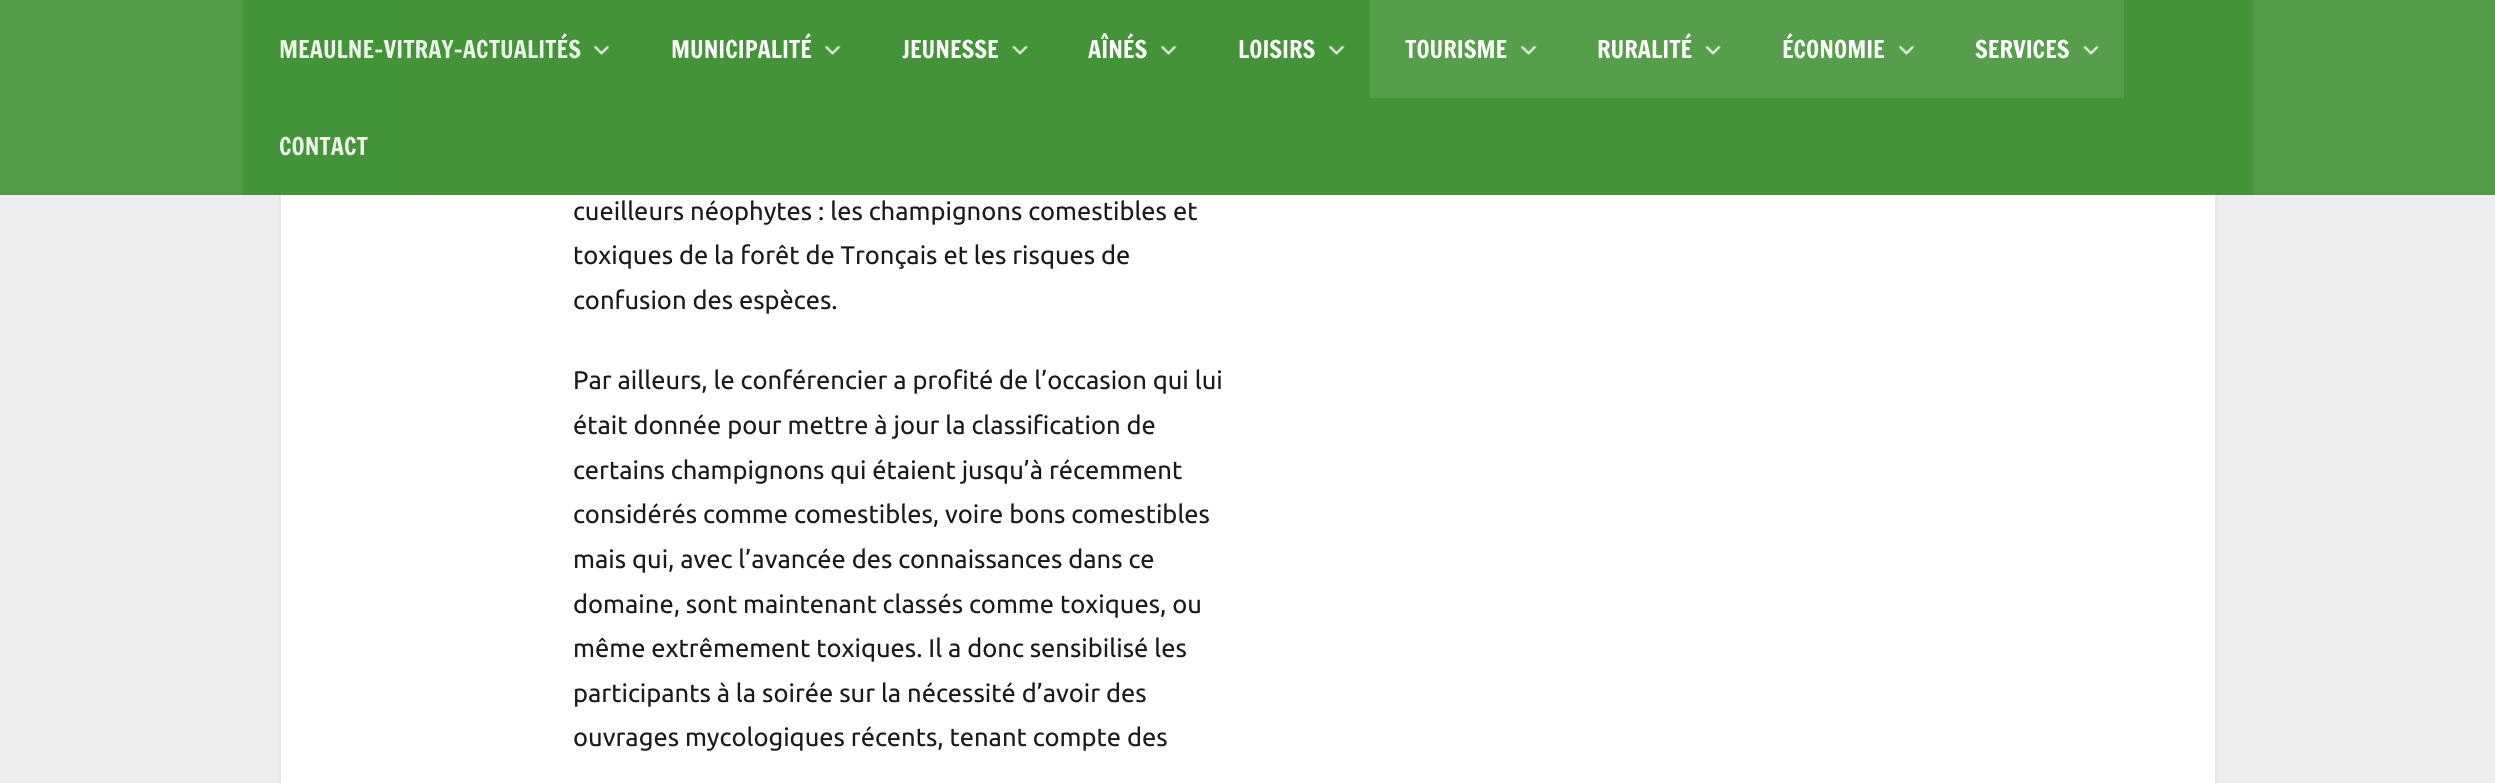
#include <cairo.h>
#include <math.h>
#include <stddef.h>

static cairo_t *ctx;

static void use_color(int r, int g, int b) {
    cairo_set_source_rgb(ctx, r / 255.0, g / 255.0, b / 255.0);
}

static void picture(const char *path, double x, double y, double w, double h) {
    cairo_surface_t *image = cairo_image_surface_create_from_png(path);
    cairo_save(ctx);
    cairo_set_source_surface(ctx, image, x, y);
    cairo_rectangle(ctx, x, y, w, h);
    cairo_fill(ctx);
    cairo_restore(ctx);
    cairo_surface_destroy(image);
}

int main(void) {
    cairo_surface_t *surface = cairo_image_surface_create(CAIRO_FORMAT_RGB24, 2495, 783);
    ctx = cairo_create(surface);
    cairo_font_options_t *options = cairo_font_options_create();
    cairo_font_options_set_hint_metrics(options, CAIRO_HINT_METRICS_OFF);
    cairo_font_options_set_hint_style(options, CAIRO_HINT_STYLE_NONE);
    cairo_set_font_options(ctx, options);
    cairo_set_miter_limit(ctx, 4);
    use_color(237, 237, 239);
    cairo_paint(ctx);
    use_color(255, 255, 255);
    cairo_rectangle(ctx, 280, -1, 1936, 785);
    cairo_fill_preserve(ctx);
    use_color(230, 230, 230);
    cairo_stroke(ctx);
    cairo_set_source_rgba(ctx, 0.263, 0.576, 0.22, 0.9);
    cairo_rectangle(ctx, 0, 0, 2495, 195);
    cairo_fill(ctx);
    cairo_rectangle(ctx, 404, 0, 1849, 195);
    cairo_fill(ctx);
    use_color(67, 147, 56);
    cairo_rectangle(ctx, 243, 0, 161, 195);
    cairo_fill(ctx);
    cairo_select_font_face(ctx, "Francois One", CAIRO_FONT_SLANT_NORMAL, CAIRO_FONT_WEIGHT_NORMAL);
    cairo_set_font_size(ctx, 24);
    use_color(236, 244, 235);
    cairo_move_to(ctx, 279, 58);
    cairo_show_text(ctx, "MEAULNE-VITRAY-ACTUALITÉS");
    picture("img1.png", 593, 45, 17, 10);
    use_color(255, 255, 255);
    cairo_move_to(ctx, 671, 58);
    cairo_show_text(ctx, "MUNICIPALITÉ");
    picture("img1.png", 824, 45, 17, 10);
    cairo_move_to(ctx, 902, 58);
    cairo_show_text(ctx, "JEUNESSE");
    picture("img2.png", 1012, 45, 16, 10);
    cairo_move_to(ctx, 1088, 58);
    cairo_show_text(ctx, "AÎNÉS");
    picture("img1.png", 1160, 45, 17, 10);
    cairo_move_to(ctx, 1238, 58);
    cairo_show_text(ctx, "LOISIRS");
    picture("img1.png", 1328, 45, 17, 10);
    use_color(86, 158, 76);
    cairo_rectangle(ctx, 1370, 0, 754, 98);
    cairo_fill(ctx);
    use_color(255, 255, 255);
    cairo_move_to(ctx, 1405, 58);
    cairo_show_text(ctx, "TOURISME");
    picture("img3.png", 1520, 45, 17, 10);
    cairo_move_to(ctx, 1597, 58);
    cairo_show_text(ctx, "RURALITÉ");
    picture("img4.png", 1705, 45, 16, 10);
    cairo_move_to(ctx, 1782, 58);
    cairo_show_text(ctx, "ÉCONOMIE");
    picture("img3.png", 1898, 45, 17, 10);
    cairo_move_to(ctx, 1975, 58);
    cairo_show_text(ctx, "SERVICES");
    picture("img4.png", 2083, 45, 16, 10);
    use_color(236, 244, 235);
    cairo_move_to(ctx, 279, 155);
    cairo_show_text(ctx, "CONTACT");
    cairo_select_font_face(ctx, "Ubuntu", CAIRO_FONT_SLANT_NORMAL, CAIRO_FONT_WEIGHT_NORMAL);
    cairo_set_font_size(ctx, 25.5);
    use_color(26, 26, 26);
    cairo_move_to(ctx, 573, 220);
    cairo_show_text(ctx, "cueilleurs néophytes : les champignons comestibles et");
    cairo_move_to(ctx, 573, 264);
    cairo_show_text(ctx, "toxiques de la forêt de Tronçais et les risques de");
    cairo_move_to(ctx, 573, 309);
    cairo_show_text(ctx, "confusion des espèces.");
    cairo_move_to(ctx, 573, 389);
    cairo_show_text(ctx, "Par ailleurs, le conférencier a profité de l’occasion qui lui");
    cairo_move_to(ctx, 573, 434);
    cairo_show_text(ctx, "était donnée pour mettre à jour la classification de");
    cairo_move_to(ctx, 573, 479);
    cairo_show_text(ctx, "certains champignons qui étaient jusqu’à récemment");
    cairo_move_to(ctx, 573, 523);
    cairo_show_text(ctx, "considérés comme comestibles, voire bons comestibles");
    cairo_move_to(ctx, 573, 568);
    cairo_show_text(ctx, "mais qui, avec l’avancée des connaissances dans ce");
    cairo_move_to(ctx, 573, 613);
    cairo_show_text(ctx, "domaine, sont maintenant classés comme toxiques, ou");
    cairo_move_to(ctx, 573, 657);
    cairo_show_text(ctx, "même extrêmement toxiques. Il a donc sensibilisé les");
    cairo_move_to(ctx, 573, 702);
    cairo_show_text(ctx, "participants à la soirée sur la nécessité d’avoir des");
    cairo_move_to(ctx, 573, 746);
    cairo_show_text(ctx, "ouvrages mycologiques récents, tenant compte des");
    cairo_surface_write_to_png(surface, "result.png");
    cairo_font_options_destroy(options);
    cairo_destroy(ctx);
    cairo_surface_destroy(surface);
    return 0;
}
